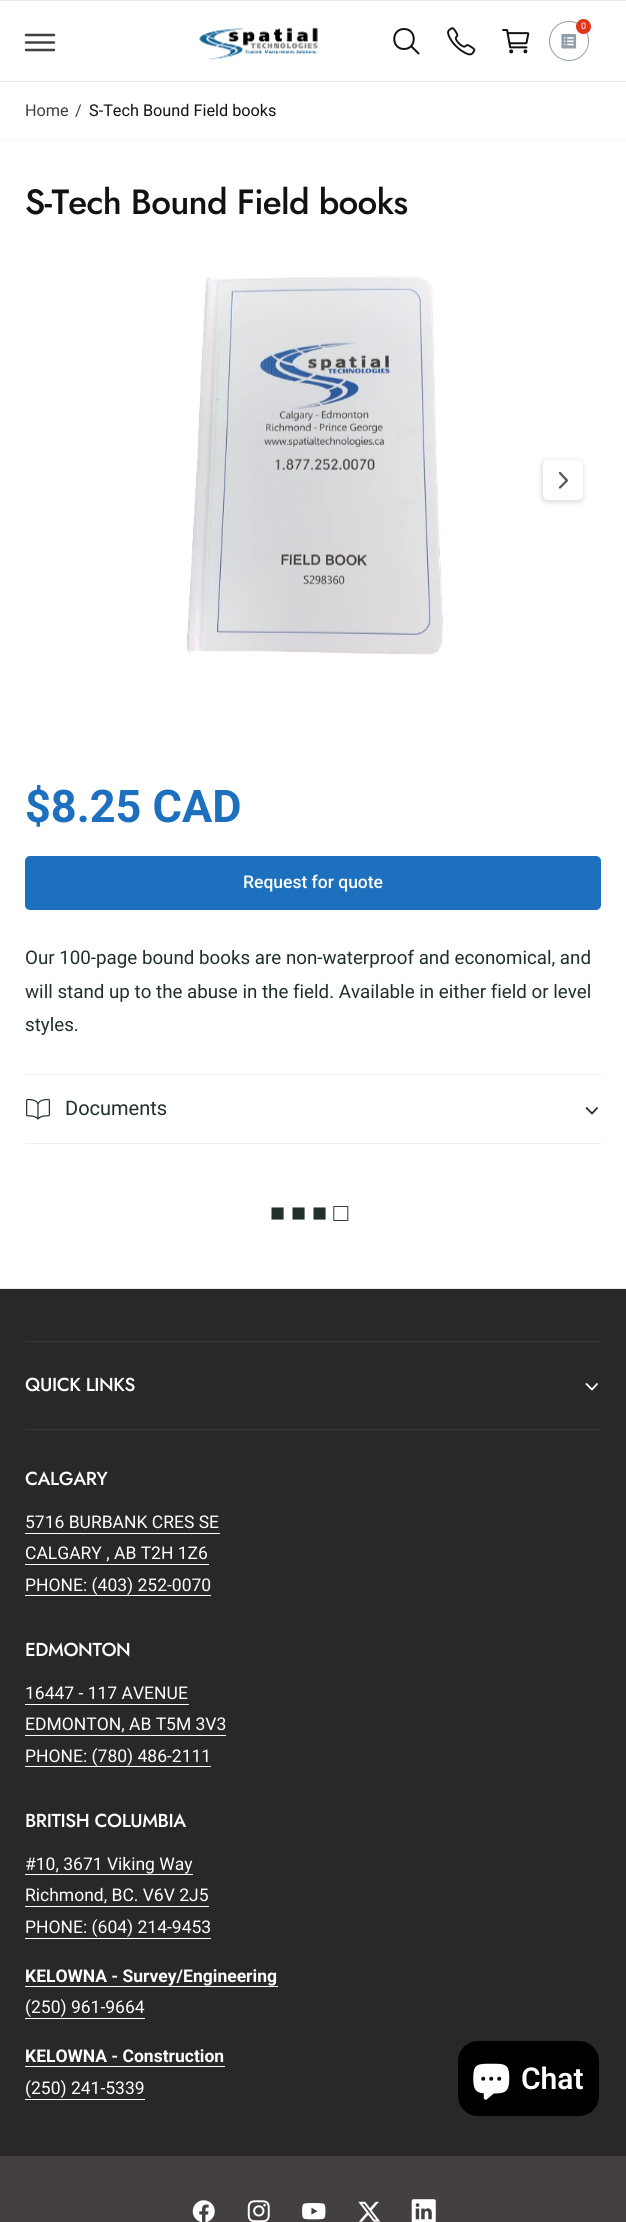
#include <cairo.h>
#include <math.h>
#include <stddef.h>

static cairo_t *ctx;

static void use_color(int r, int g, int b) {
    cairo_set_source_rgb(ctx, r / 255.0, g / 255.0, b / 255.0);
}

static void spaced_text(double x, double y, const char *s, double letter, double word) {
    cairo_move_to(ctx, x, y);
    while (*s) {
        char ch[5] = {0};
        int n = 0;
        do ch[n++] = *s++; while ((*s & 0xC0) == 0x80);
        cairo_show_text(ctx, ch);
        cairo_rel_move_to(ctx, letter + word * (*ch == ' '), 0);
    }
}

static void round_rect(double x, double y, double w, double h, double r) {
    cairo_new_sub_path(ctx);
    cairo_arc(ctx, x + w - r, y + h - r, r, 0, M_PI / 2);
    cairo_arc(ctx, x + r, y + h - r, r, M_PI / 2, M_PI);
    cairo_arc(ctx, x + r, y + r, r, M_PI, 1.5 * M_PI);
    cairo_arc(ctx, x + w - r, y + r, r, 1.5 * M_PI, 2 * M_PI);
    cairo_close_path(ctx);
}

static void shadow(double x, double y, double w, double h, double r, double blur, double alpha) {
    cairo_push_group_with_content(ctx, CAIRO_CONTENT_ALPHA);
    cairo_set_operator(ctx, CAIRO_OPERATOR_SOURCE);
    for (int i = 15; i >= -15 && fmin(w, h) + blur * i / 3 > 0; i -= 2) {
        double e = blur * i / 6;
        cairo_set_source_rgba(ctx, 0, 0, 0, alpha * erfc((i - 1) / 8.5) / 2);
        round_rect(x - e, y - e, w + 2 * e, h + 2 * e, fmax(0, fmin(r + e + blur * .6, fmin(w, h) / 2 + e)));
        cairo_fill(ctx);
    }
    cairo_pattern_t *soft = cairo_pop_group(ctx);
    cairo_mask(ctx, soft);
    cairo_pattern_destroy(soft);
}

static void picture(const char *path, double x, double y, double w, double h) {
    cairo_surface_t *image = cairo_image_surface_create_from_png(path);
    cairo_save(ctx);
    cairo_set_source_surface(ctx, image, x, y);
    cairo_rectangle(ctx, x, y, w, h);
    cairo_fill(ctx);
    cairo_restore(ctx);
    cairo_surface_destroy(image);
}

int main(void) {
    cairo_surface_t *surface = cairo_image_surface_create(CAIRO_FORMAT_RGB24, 626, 2222);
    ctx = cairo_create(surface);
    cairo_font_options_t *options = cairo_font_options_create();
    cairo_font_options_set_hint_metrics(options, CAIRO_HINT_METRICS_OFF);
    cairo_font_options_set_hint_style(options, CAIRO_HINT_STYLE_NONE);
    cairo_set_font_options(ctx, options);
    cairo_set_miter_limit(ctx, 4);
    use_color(255, 255, 255);
    cairo_paint(ctx);
    use_color(236, 236, 236);
    cairo_rectangle(ctx, 0, 0, 626, 1);
    cairo_fill(ctx);
    cairo_rectangle(ctx, 0, 81, 626, 1);
    cairo_fill(ctx);
    cairo_arc(ctx, 569, 41, 19.5, 0, 2 * M_PI);
    use_color(145, 159, 171);
    cairo_set_line_width(ctx, 1);
    cairo_stroke(ctx);
    use_color(222, 54, 25);
    cairo_arc(ctx, 583.5, 26.5, 7.5, 0, 2 * M_PI);
    cairo_fill(ctx);
    cairo_select_font_face(ctx, "Roboto", CAIRO_FONT_SLANT_NORMAL, CAIRO_FONT_WEIGHT_NORMAL);
    cairo_set_font_size(ctx, 9);
    use_color(255, 255, 255);
    cairo_move_to(ctx, 581, 29);
    cairo_show_text(ctx, "0");
    picture("img1.png", 561, 34, 16, 15);
    cairo_new_path(ctx);
    cairo_move_to(ctx, 404, 29);
    cairo_curve_to(ctx, 391, 29, 391, 49, 404, 49);
    cairo_curve_to(ctx, 417, 49, 417, 29, 404, 29);
    cairo_close_path(ctx);
    use_color(18, 18, 18);
    cairo_set_line_width(ctx, 2);
    cairo_stroke(ctx);
    cairo_new_path(ctx);
    cairo_move_to(ctx, 411.5, 46.5);
    cairo_line_to(ctx, 418.5, 53.5);
    cairo_set_line_cap(ctx, CAIRO_LINE_CAP_ROUND);
    cairo_stroke(ctx);
    picture("img2.png", 447, 27, 29, 29);
    picture("img3.png", 502, 29, 28, 25);
    cairo_new_path(ctx);
    cairo_move_to(ctx, 26, 35);
    cairo_line_to(ctx, 54, 35);
    cairo_move_to(ctx, 26, 42.5);
    cairo_line_to(ctx, 54, 42.5);
    cairo_move_to(ctx, 26, 50);
    cairo_line_to(ctx, 54, 50);
    use_color(65, 65, 65);
    cairo_set_line_width(ctx, 2.5);
    cairo_stroke(ctx);
    picture("img4.png", 199, 27, 119, 33);
    use_color(245, 245, 245);
    cairo_rectangle(ctx, 0, 140, 626, 1);
    cairo_fill(ctx);
    cairo_set_font_size(ctx, 16.25);
    use_color(65, 65, 65);
    cairo_move_to(ctx, 25, 116);
    cairo_show_text(ctx, "Home");
    cairo_move_to(ctx, 75, 116);
    cairo_show_text(ctx, "/");
    use_color(18, 18, 18);
    cairo_move_to(ctx, 89, 116);
    cairo_show_text(ctx, "S-Tech Bound Field books");
    cairo_select_font_face(ctx, "Jost Medium", CAIRO_FONT_SLANT_NORMAL, CAIRO_FONT_WEIGHT_NORMAL);
    cairo_set_font_size(ctx, 35);
    spaced_text(25, 214, "S-Tech Bound Field books", -0.7, 0);
    picture("img5.png", 186, 276, 257, 379);
    use_color(60, 64, 67);
    shadow(541, 460, 43, 43, 6, 2, 0.15);
    use_color(255, 255, 255);
    round_rect(543, 460, 40, 40, 5);
    cairo_fill(ctx);
    cairo_new_path(ctx);
    cairo_move_to(ctx, 560, 487.5);
    cairo_line_to(ctx, 567, 480.5);
    cairo_line_to(ctx, 560, 473);
    use_color(86, 88, 91);
    cairo_set_line_width(ctx, 2.3);
    cairo_set_line_join(ctx, CAIRO_LINE_JOIN_ROUND);
    cairo_stroke(ctx);
    cairo_select_font_face(ctx, "Roboto", CAIRO_FONT_SLANT_NORMAL, CAIRO_FONT_WEIGHT_BOLD);
    cairo_set_font_size(ctx, 45);
    use_color(28, 112, 190);
    cairo_move_to(ctx, 25, 822);
    cairo_show_text(ctx, "$8.25 CAD");
    round_rect(25, 856, 576, 54, 5);
    cairo_fill(ctx);
    cairo_select_font_face(ctx, "Roboto Medium", CAIRO_FONT_SLANT_NORMAL, CAIRO_FONT_WEIGHT_NORMAL);
    cairo_set_font_size(ctx, 17.5);
    use_color(255, 255, 255);
    cairo_move_to(ctx, 243, 888);
    cairo_show_text(ctx, "Request for quote");
    cairo_select_font_face(ctx, "Roboto", CAIRO_FONT_SLANT_NORMAL, CAIRO_FONT_WEIGHT_NORMAL);
    cairo_set_font_size(ctx, 18.75);
    use_color(33, 48, 45);
    cairo_move_to(ctx, 25, 964);
    cairo_show_text(ctx, "Our 100-page bound books are non-waterproof and economical, and");
    cairo_move_to(ctx, 25, 998);
    cairo_show_text(ctx, "will stand up to the abuse in the field. Available in either field or level");
    cairo_move_to(ctx, 25, 1031);
    cairo_show_text(ctx, "styles.");
    use_color(237, 238, 238);
    cairo_rectangle(ctx, 25, 1074, 576, 1);
    cairo_fill(ctx);
    cairo_rectangle(ctx, 25, 1143, 576, 1);
    cairo_fill(ctx);
    picture("img6.png", 26, 1098, 24, 22);
    cairo_set_font_size(ctx, 20);
    use_color(33, 48, 45);
    cairo_move_to(ctx, 65, 1115);
    cairo_show_text(ctx, "Documents");
    cairo_new_path(ctx);
    cairo_move_to(ctx, 586.5, 1108);
    cairo_line_to(ctx, 592, 1113.5);
    cairo_line_to(ctx, 597, 1108);
    cairo_set_line_width(ctx, 1.8);
    cairo_stroke(ctx);
    cairo_select_font_face(ctx, "Liberation Sans", CAIRO_FONT_SLANT_NORMAL, CAIRO_FONT_WEIGHT_NORMAL);
    cairo_set_font_size(ctx, 25);
    spaced_text(270, 1221, "■ ■ ■ □", 0, -1);
    use_color(236, 236, 236);
    cairo_rectangle(ctx, 0, 1288, 626, 1);
    cairo_fill(ctx);
    use_color(42, 39, 39);
    cairo_rectangle(ctx, 0, 1289, 626, 867);
    cairo_fill(ctx);
    use_color(59, 56, 56);
    cairo_rectangle(ctx, 25, 1341, 576, 1);
    cairo_fill(ctx);
    cairo_rectangle(ctx, 25, 1429, 576, 1);
    cairo_fill(ctx);
    cairo_select_font_face(ctx, "Jost Medium", CAIRO_FONT_SLANT_NORMAL, CAIRO_FONT_WEIGHT_NORMAL);
    cairo_set_font_size(ctx, 18.75);
    use_color(255, 255, 255);
    spaced_text(25, 1391, "QUICK LINKS", -0.4, 0);
    cairo_new_path(ctx);
    cairo_move_to(ctx, 586.5, 1384);
    cairo_line_to(ctx, 592, 1389.5);
    cairo_line_to(ctx, 597, 1384);
    cairo_stroke(ctx);
    spaced_text(25, 1485, "CALGARY", -0.4, 0);
    cairo_select_font_face(ctx, "Roboto", CAIRO_FONT_SLANT_NORMAL, CAIRO_FONT_WEIGHT_NORMAL);
    cairo_set_font_size(ctx, 17.5);
    cairo_move_to(ctx, 25, 1528);
    cairo_show_text(ctx, "5716 BURBANK CRES SE");
    cairo_rectangle(ctx, 25, 1533, 195, 1);
    cairo_fill(ctx);
    cairo_move_to(ctx, 25, 1559);
    cairo_show_text(ctx, "CALGARY , AB T2H 1Z6");
    cairo_rectangle(ctx, 25, 1564, 184, 1);
    cairo_fill(ctx);
    cairo_move_to(ctx, 25, 1591);
    cairo_show_text(ctx, "PHONE: (403) 252-0070");
    cairo_rectangle(ctx, 25, 1595, 186, 1);
    cairo_fill(ctx);
    cairo_select_font_face(ctx, "Jost Medium", CAIRO_FONT_SLANT_NORMAL, CAIRO_FONT_WEIGHT_NORMAL);
    cairo_set_font_size(ctx, 18.75);
    spaced_text(25, 1656, "EDMONTON", -0.4, 0);
    cairo_select_font_face(ctx, "Roboto", CAIRO_FONT_SLANT_NORMAL, CAIRO_FONT_WEIGHT_NORMAL);
    cairo_set_font_size(ctx, 17.5);
    cairo_move_to(ctx, 25, 1699);
    cairo_show_text(ctx, "16447 - 117 AVENUE");
    cairo_rectangle(ctx, 25, 1704, 164, 1);
    cairo_fill(ctx);
    cairo_move_to(ctx, 25, 1730);
    cairo_show_text(ctx, "EDMONTON, AB T5M 3V3");
    cairo_rectangle(ctx, 25, 1735, 201, 1);
    cairo_fill(ctx);
    cairo_move_to(ctx, 25, 1762);
    cairo_show_text(ctx, "PHONE: (780) 486-2111");
    cairo_rectangle(ctx, 25, 1766, 186, 1);
    cairo_fill(ctx);
    cairo_select_font_face(ctx, "Jost Medium", CAIRO_FONT_SLANT_NORMAL, CAIRO_FONT_WEIGHT_NORMAL);
    cairo_set_font_size(ctx, 18.75);
    spaced_text(25, 1827, "BRITISH COLUMBIA", -0.4, 0);
    cairo_select_font_face(ctx, "Roboto", CAIRO_FONT_SLANT_NORMAL, CAIRO_FONT_WEIGHT_NORMAL);
    cairo_set_font_size(ctx, 17.5);
    cairo_move_to(ctx, 25, 1870);
    cairo_show_text(ctx, "#10, 3671 Viking Way");
    cairo_rectangle(ctx, 25, 1874, 168, 1);
    cairo_fill(ctx);
    cairo_move_to(ctx, 25, 1901);
    cairo_show_text(ctx, "Richmond, BC. V6V 2J5");
    cairo_rectangle(ctx, 25, 1906, 184, 1);
    cairo_fill(ctx);
    cairo_move_to(ctx, 25, 1933);
    cairo_show_text(ctx, "PHONE: (604) 214-9453");
    cairo_rectangle(ctx, 25, 1938, 186, 1);
    cairo_fill(ctx);
    cairo_select_font_face(ctx, "Roboto", CAIRO_FONT_SLANT_NORMAL, CAIRO_FONT_WEIGHT_BOLD);
    cairo_move_to(ctx, 25, 1982);
    cairo_show_text(ctx, "KELOWNA - Survey/Engineering");
    cairo_rectangle(ctx, 25, 1986, 253, 1);
    cairo_fill(ctx);
    cairo_select_font_face(ctx, "Roboto", CAIRO_FONT_SLANT_NORMAL, CAIRO_FONT_WEIGHT_NORMAL);
    cairo_move_to(ctx, 25, 2013);
    cairo_show_text(ctx, "(250) 961-9664");
    cairo_rectangle(ctx, 25, 2018, 120, 1);
    cairo_fill(ctx);
    cairo_select_font_face(ctx, "Roboto", CAIRO_FONT_SLANT_NORMAL, CAIRO_FONT_WEIGHT_BOLD);
    cairo_move_to(ctx, 25, 2062);
    cairo_show_text(ctx, "KELOWNA - Construction");
    cairo_rectangle(ctx, 25, 2066, 200, 1);
    cairo_fill(ctx);
    cairo_select_font_face(ctx, "Roboto", CAIRO_FONT_SLANT_NORMAL, CAIRO_FONT_WEIGHT_NORMAL);
    cairo_move_to(ctx, 25, 2094);
    cairo_show_text(ctx, "(250) 241-5339");
    cairo_rectangle(ctx, 25, 2099, 120, 1);
    cairo_fill(ctx);
    use_color(68, 64, 64);
    cairo_rectangle(ctx, 0, 2156, 626, 66);
    cairo_fill(ctx);
    picture("img7.png", 192, 2200, 23, 22);
    picture("img8.png", 247, 2200, 23, 22);
    picture("img9.png", 302, 2203, 24, 17);
    picture("img10.png", 358, 2201, 23, 21);
    picture("img11.png", 411, 2199, 25, 23);
    use_color(0, 0, 0);
    round_rect(458, 2041, 141, 75, 20);
    cairo_fill(ctx);
    picture("img12.png", 473, 2063, 37, 37);
    cairo_select_font_face(ctx, "Roboto SemiBold", CAIRO_FONT_SLANT_NORMAL, CAIRO_FONT_WEIGHT_NORMAL);
    cairo_set_font_size(ctx, 30);
    use_color(255, 255, 255);
    cairo_move_to(ctx, 521, 2089);
    cairo_show_text(ctx, "Chat");
    cairo_surface_write_to_png(surface, "result.png");
    cairo_font_options_destroy(options);
    cairo_destroy(ctx);
    cairo_surface_destroy(surface);
    return 0;
}
